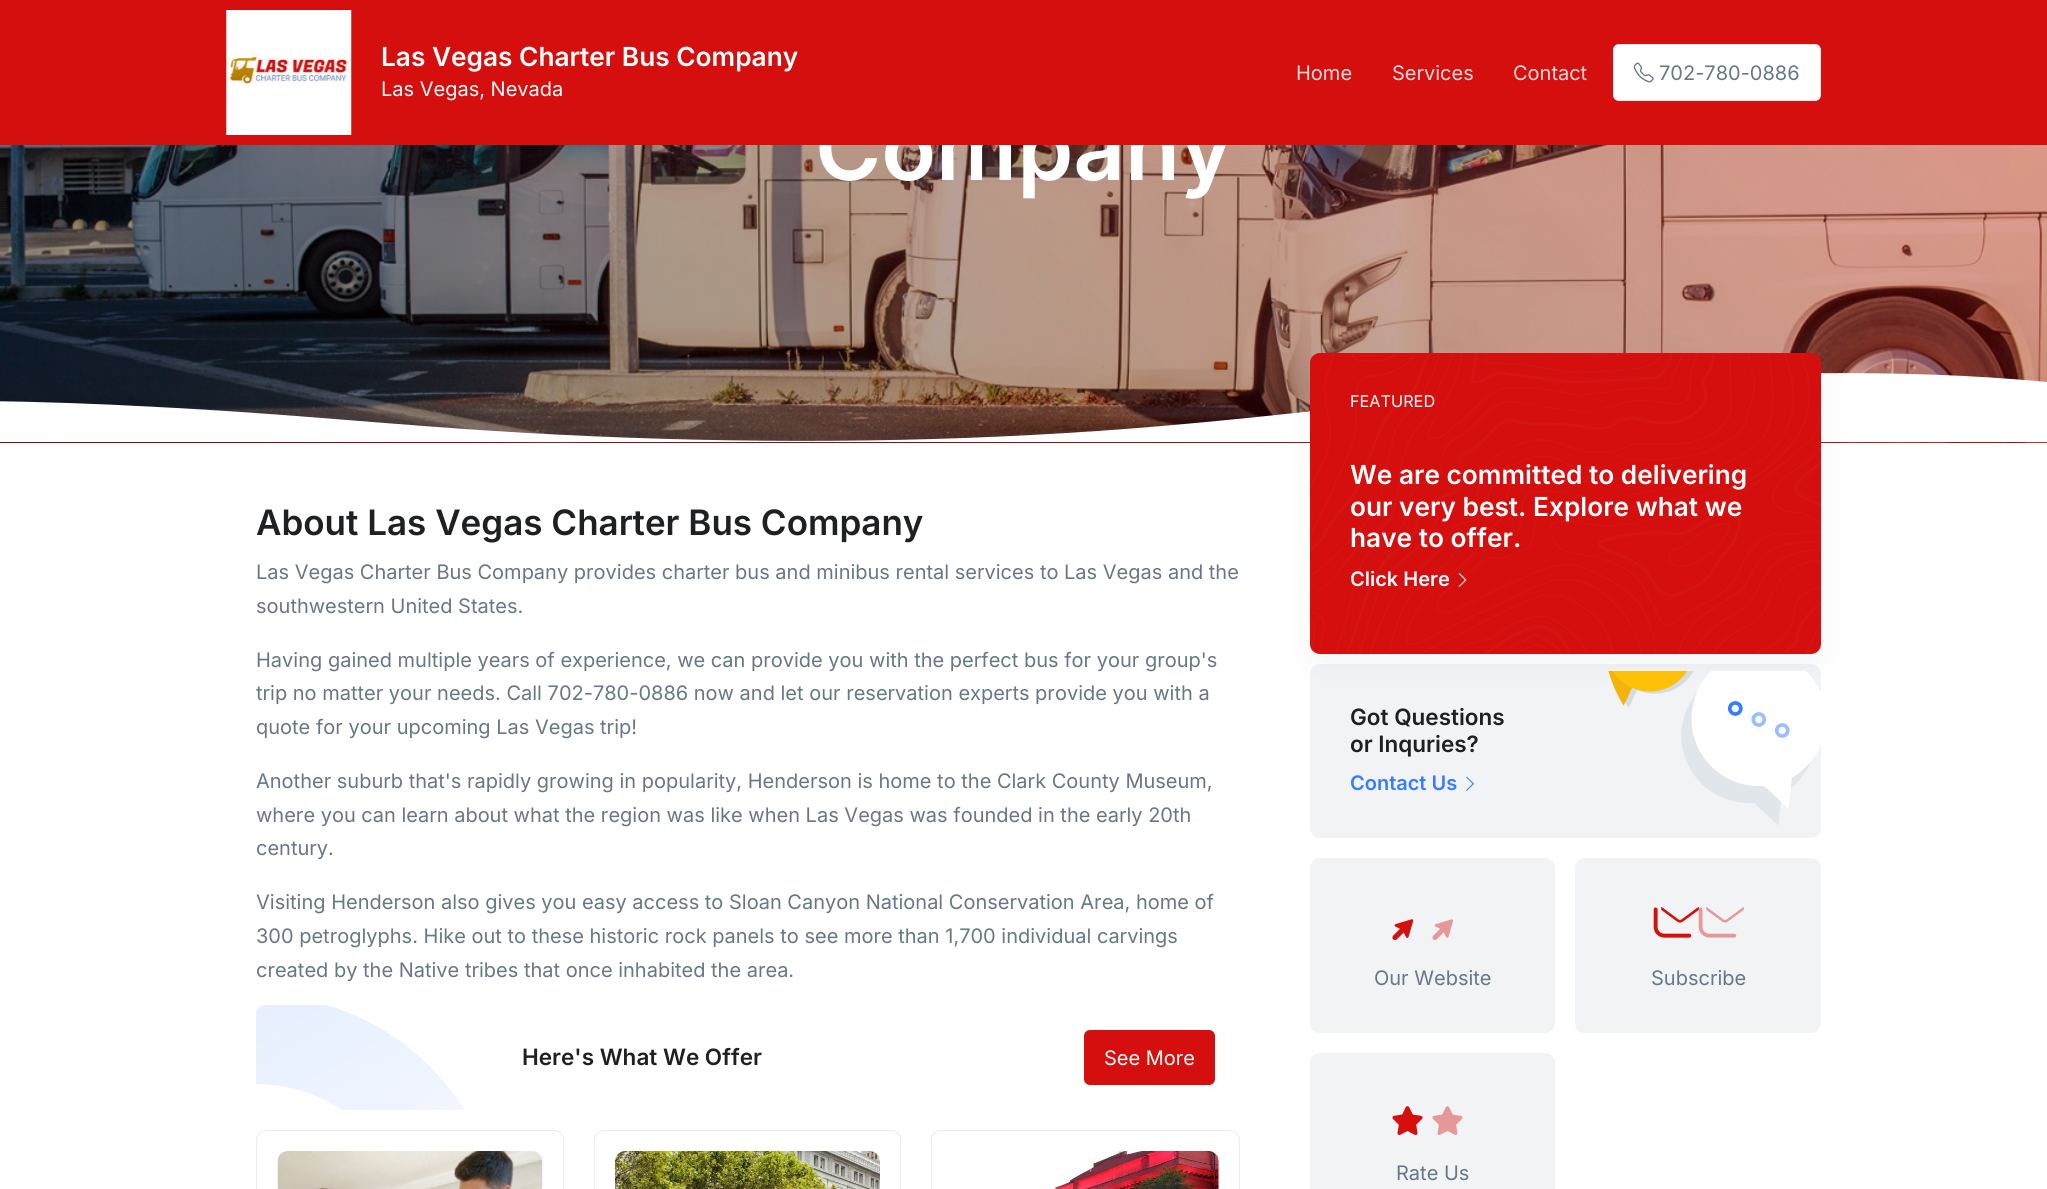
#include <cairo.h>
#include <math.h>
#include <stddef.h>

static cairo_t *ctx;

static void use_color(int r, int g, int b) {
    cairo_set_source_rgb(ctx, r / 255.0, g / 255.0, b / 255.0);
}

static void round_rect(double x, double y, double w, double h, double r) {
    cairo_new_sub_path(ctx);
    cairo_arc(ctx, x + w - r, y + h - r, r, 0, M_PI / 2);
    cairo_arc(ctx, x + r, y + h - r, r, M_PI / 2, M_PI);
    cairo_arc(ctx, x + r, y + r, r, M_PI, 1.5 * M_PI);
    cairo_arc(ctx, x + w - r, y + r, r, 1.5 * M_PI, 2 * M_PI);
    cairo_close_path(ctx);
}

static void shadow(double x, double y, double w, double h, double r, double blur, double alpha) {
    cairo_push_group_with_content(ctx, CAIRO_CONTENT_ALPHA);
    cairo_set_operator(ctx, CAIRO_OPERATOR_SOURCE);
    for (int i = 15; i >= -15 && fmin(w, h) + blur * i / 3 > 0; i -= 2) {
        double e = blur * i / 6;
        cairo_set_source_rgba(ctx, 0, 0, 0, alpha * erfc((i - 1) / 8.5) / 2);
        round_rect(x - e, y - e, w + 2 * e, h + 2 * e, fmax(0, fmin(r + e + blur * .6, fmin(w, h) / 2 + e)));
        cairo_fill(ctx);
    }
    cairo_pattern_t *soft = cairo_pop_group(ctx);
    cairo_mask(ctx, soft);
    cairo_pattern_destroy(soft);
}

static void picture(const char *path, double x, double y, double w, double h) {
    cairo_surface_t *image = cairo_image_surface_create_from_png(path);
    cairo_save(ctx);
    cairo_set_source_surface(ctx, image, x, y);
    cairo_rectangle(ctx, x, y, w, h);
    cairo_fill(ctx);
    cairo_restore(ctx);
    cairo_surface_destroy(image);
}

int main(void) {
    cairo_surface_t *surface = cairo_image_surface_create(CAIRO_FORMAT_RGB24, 2047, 1189);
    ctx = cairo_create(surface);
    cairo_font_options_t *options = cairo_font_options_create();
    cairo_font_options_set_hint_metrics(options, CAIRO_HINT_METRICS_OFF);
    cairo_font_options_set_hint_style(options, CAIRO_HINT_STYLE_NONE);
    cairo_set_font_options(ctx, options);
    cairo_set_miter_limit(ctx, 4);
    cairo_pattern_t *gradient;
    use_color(255, 255, 255);
    cairo_paint(ctx);
    use_color(212, 15, 14);
    cairo_rectangle(ctx, 0, 442, 2047, 1);
    cairo_fill(ctx);
    picture("img3.png", 0, 145, 2047, 298);
    gradient = cairo_pattern_create_linear(333, 775, 1715, -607);
    cairo_pattern_add_color_stop_rgba(gradient, 0.15, 0, 0, 0, 0.4);
    cairo_pattern_add_color_stop_rgba(gradient, 1, 0.831, 0.059, 0.055, 0.35);
    cairo_set_source(ctx, gradient);
    cairo_pattern_destroy(gradient);
    cairo_rectangle(ctx, 0, 145, 2047, 298);
    cairo_fill(ctx);
    cairo_select_font_face(ctx, "Inter SemiBold", CAIRO_FONT_SLANT_NORMAL, CAIRO_FONT_WEIGHT_NORMAL);
    cairo_set_font_size(ctx, 90);
    use_color(255, 255, 255);
    cairo_move_to(ctx, 815, 180);
    cairo_show_text(ctx, "Company");
    use_color(212, 15, 14);
    cairo_rectangle(ctx, 0, 0, 2047, 145);
    cairo_fill(ctx);
    picture("img1.png", 226, 10, 126, 125);
    cairo_set_font_size(ctx, 26.25);
    use_color(255, 255, 255);
    cairo_move_to(ctx, 381, 66);
    cairo_show_text(ctx, "Las Vegas Charter Bus Company");
    cairo_select_font_face(ctx, "Inter", CAIRO_FONT_SLANT_NORMAL, CAIRO_FONT_WEIGHT_NORMAL);
    cairo_set_font_size(ctx, 20);
    cairo_move_to(ctx, 381, 96);
    cairo_show_text(ctx, "Las Vegas, Nevada");
    use_color(249, 219, 219);
    cairo_move_to(ctx, 1296, 80);
    cairo_show_text(ctx, "Home");
    cairo_move_to(ctx, 1392, 80);
    cairo_show_text(ctx, "Services");
    cairo_move_to(ctx, 1513, 80);
    cairo_show_text(ctx, "Contact");
    use_color(255, 255, 255);
    round_rect(1613, 44, 208, 57, 6);
    cairo_fill(ctx);
    round_rect(1613.5, 44.5, 207, 56, 5.5);
    cairo_set_source_rgba(ctx, 0.129, 0.196, 0.357, 0.1);
    cairo_set_line_width(ctx, 1);
    cairo_stroke(ctx);
    picture("img2.png", 1633, 62, 21, 21);
    use_color(103, 119, 136);
    cairo_move_to(ctx, 1659, 80);
    cairo_show_text(ctx, "702-780-0886");
    use_color(255, 255, 255);
    cairo_new_path(ctx);
    cairo_move_to(ctx, 157, 407);
    cairo_curve_to(ctx, 282, 413, 403, 426, 527, 433);
    cairo_curve_to(ctx, 705, 443, 889, 444, 1066, 433);
    cairo_curve_to(ctx, 1238, 423, 1416, 397, 1586, 384);
    cairo_curve_to(ctx, 1737, 372, 1902, 368, 2047, 382);
    cairo_line_to(ctx, 2047, 442);
    cairo_line_to(ctx, -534, 442);
    cairo_line_to(ctx, -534, 425);
    cairo_curve_to(ctx, -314, 401, -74, 394, 157, 407);
    cairo_close_path(ctx);
    cairo_fill(ctx);
    cairo_select_font_face(ctx, "Inter SemiBold", CAIRO_FONT_SLANT_NORMAL, CAIRO_FONT_WEIGHT_NORMAL);
    cairo_set_font_size(ctx, 35);
    use_color(30, 32, 34);
    cairo_move_to(ctx, 256, 535);
    cairo_show_text(ctx, "About Las Vegas Charter Bus Company");
    cairo_select_font_face(ctx, "Inter", CAIRO_FONT_SLANT_NORMAL, CAIRO_FONT_WEIGHT_NORMAL);
    cairo_set_font_size(ctx, 20);
    use_color(103, 119, 136);
    cairo_move_to(ctx, 256, 579);
    cairo_show_text(ctx, "Las Vegas Charter Bus Company provides charter bus and minibus rental services to Las Vegas and the");
    cairo_move_to(ctx, 256, 613);
    cairo_show_text(ctx, "southwestern United States.");
    cairo_move_to(ctx, 256, 667);
    cairo_show_text(ctx, "Having gained multiple years of experience, we can provide you with the perfect bus for your group's");
    cairo_move_to(ctx, 256, 700);
    cairo_show_text(ctx, "trip no matter your needs. Call 702-780-0886 now and let our reservation experts provide you with a");
    cairo_move_to(ctx, 256, 734);
    cairo_show_text(ctx, "quote for your upcoming Las Vegas trip!");
    cairo_move_to(ctx, 256, 788);
    cairo_show_text(ctx, "Another suburb that's rapidly growing in popularity, Henderson is home to the Clark County Museum,");
    cairo_move_to(ctx, 256, 822);
    cairo_show_text(ctx, "where you can learn about what the region was like when Las Vegas was founded in the early 20th");
    cairo_move_to(ctx, 256, 855);
    cairo_show_text(ctx, "century.");
    cairo_move_to(ctx, 256, 909);
    cairo_show_text(ctx, "Visiting Henderson also gives you easy access to Sloan Canyon National Conservation Area, home of");
    cairo_move_to(ctx, 256, 943);
    cairo_show_text(ctx, "300 petroglyphs. Hike out to these historic rock panels to see more than 1,700 individual carvings");
    cairo_move_to(ctx, 256, 977);
    cairo_show_text(ctx, "created by the Native tribes that once inhabited the area.");
    cairo_save(ctx);
    round_rect(256, 1005, 984, 105, 10);
    cairo_clip(ctx);
    cairo_new_path(ctx);
    cairo_move_to(ctx, 256, 1039.5);
    cairo_curve_to(ctx, 367.5, 1039.5, 457.5, 1129.5, 457.5, 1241);
    cairo_curve_to(ctx, 457.5, 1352, 367.5, 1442, 256, 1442);
    gradient = cairo_pattern_create_linear(432, 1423, 203, 1026);
    cairo_pattern_add_color_stop_rgba(gradient, 0, 1, 1, 1, 1);
    cairo_pattern_add_color_stop_rgba(gradient, 1, 0.902, 0.937, 1, 1);
    cairo_set_source(ctx, gradient);
    cairo_pattern_destroy(gradient);
    cairo_set_line_width(ctx, 89.4);
    cairo_stroke(ctx);
    cairo_restore(ctx);
    cairo_select_font_face(ctx, "Inter SemiBold", CAIRO_FONT_SLANT_NORMAL, CAIRO_FONT_WEIGHT_NORMAL);
    cairo_set_font_size(ctx, 22.5);
    use_color(30, 32, 34);
    cairo_move_to(ctx, 522, 1065);
    cairo_show_text(ctx, "Here's What We Offer");
    use_color(212, 15, 14);
    round_rect(1084, 1030, 131, 55, 6);
    cairo_fill(ctx);
    cairo_select_font_face(ctx, "Inter", CAIRO_FONT_SLANT_NORMAL, CAIRO_FONT_WEIGHT_NORMAL);
    cairo_set_font_size(ctx, 20);
    use_color(255, 255, 255);
    cairo_move_to(ctx, 1104, 1065);
    cairo_show_text(ctx, "See More");
    round_rect(256.5, 1130.5, 307, 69, 9.5);
    use_color(233, 235, 239);
    cairo_stroke(ctx);
    picture("img4.png", 277, 1151, 266, 38);
    round_rect(594.5, 1130.5, 306, 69, 9.5);
    cairo_stroke(ctx);
    picture("img5.png", 615, 1151, 265, 38);
    round_rect(931.5, 1130.5, 308, 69, 9.5);
    cairo_stroke(ctx);
    picture("img6.png", 1054, 1151, 165, 38);
    use_color(140, 152, 164);
    shadow(1310, 360, 511, 301, 10, 15, 0.12);
    use_color(212, 15, 14);
    round_rect(1310, 353, 511, 301, 10);
    cairo_fill(ctx);
    picture("img7.png", 1310, 353, 511, 300);
    cairo_set_font_size(ctx, 16.25);
    use_color(255, 255, 255);
    cairo_move_to(ctx, 1350, 407);
    cairo_show_text(ctx, "FEATURED");
    cairo_select_font_face(ctx, "Inter SemiBold", CAIRO_FONT_SLANT_NORMAL, CAIRO_FONT_WEIGHT_NORMAL);
    cairo_set_font_size(ctx, 26.25);
    cairo_move_to(ctx, 1350, 484);
    cairo_show_text(ctx, "We are committed to delivering");
    cairo_move_to(ctx, 1350, 516);
    cairo_show_text(ctx, "our very best. Explore what we");
    cairo_move_to(ctx, 1350, 547);
    cairo_show_text(ctx, "have to offer.");
    cairo_set_font_size(ctx, 20);
    use_color(247, 250, 255);
    cairo_move_to(ctx, 1350, 586);
    cairo_show_text(ctx, "Click Here");
    picture("img8.png", 1458, 572, 9, 16);
    cairo_set_source_rgba(ctx, 0.443, 0.525, 0.616, 0.1);
    round_rect(1310, 664, 511, 174, 10);
    cairo_fill(ctx);
    cairo_set_font_size(ctx, 22.5);
    use_color(30, 32, 34);
    cairo_move_to(ctx, 1350, 725);
    cairo_show_text(ctx, "Got Questions");
    cairo_move_to(ctx, 1350, 752);
    cairo_show_text(ctx, "or Inquries?");
    cairo_set_font_size(ctx, 20);
    use_color(55, 125, 255);
    cairo_move_to(ctx, 1350, 790);
    cairo_show_text(ctx, "Contact Us");
    picture("img9.png", 1466, 776, 8, 15);
    picture("img10.png", 1608, 671, 213, 154);
    use_color(241, 243, 245);
    round_rect(1310, 858, 245, 175, 10);
    cairo_fill(ctx);
    picture("img11.png", 1392, 919, 22, 21);
    picture("img12.png", 1392, 919, 62, 21);
    cairo_select_font_face(ctx, "Inter", CAIRO_FONT_SLANT_NORMAL, CAIRO_FONT_WEIGHT_NORMAL);
    use_color(103, 119, 136);
    cairo_move_to(ctx, 1374, 985);
    cairo_show_text(ctx, "Our Website");
    use_color(241, 243, 245);
    round_rect(1575, 858, 246, 175, 10);
    cairo_fill(ctx);
    picture("img13.png", 1653, 906, 46, 32);
    picture("img14.png", 1653, 907, 91, 31);
    use_color(103, 119, 136);
    cairo_move_to(ctx, 1651, 985);
    cairo_show_text(ctx, "Subscribe");
    use_color(241, 243, 245);
    round_rect(1310, 1053, 245, 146, 10);
    cairo_fill(ctx);
    picture("img15.png", 1392, 1106, 31, 29);
    picture("img16.png", 1392, 1106, 71, 29);
    use_color(103, 119, 136);
    cairo_move_to(ctx, 1396, 1180);
    cairo_show_text(ctx, "Rate Us");
    cairo_surface_write_to_png(surface, "result.png");
    cairo_font_options_destroy(options);
    cairo_destroy(ctx);
    cairo_surface_destroy(surface);
    return 0;
}
